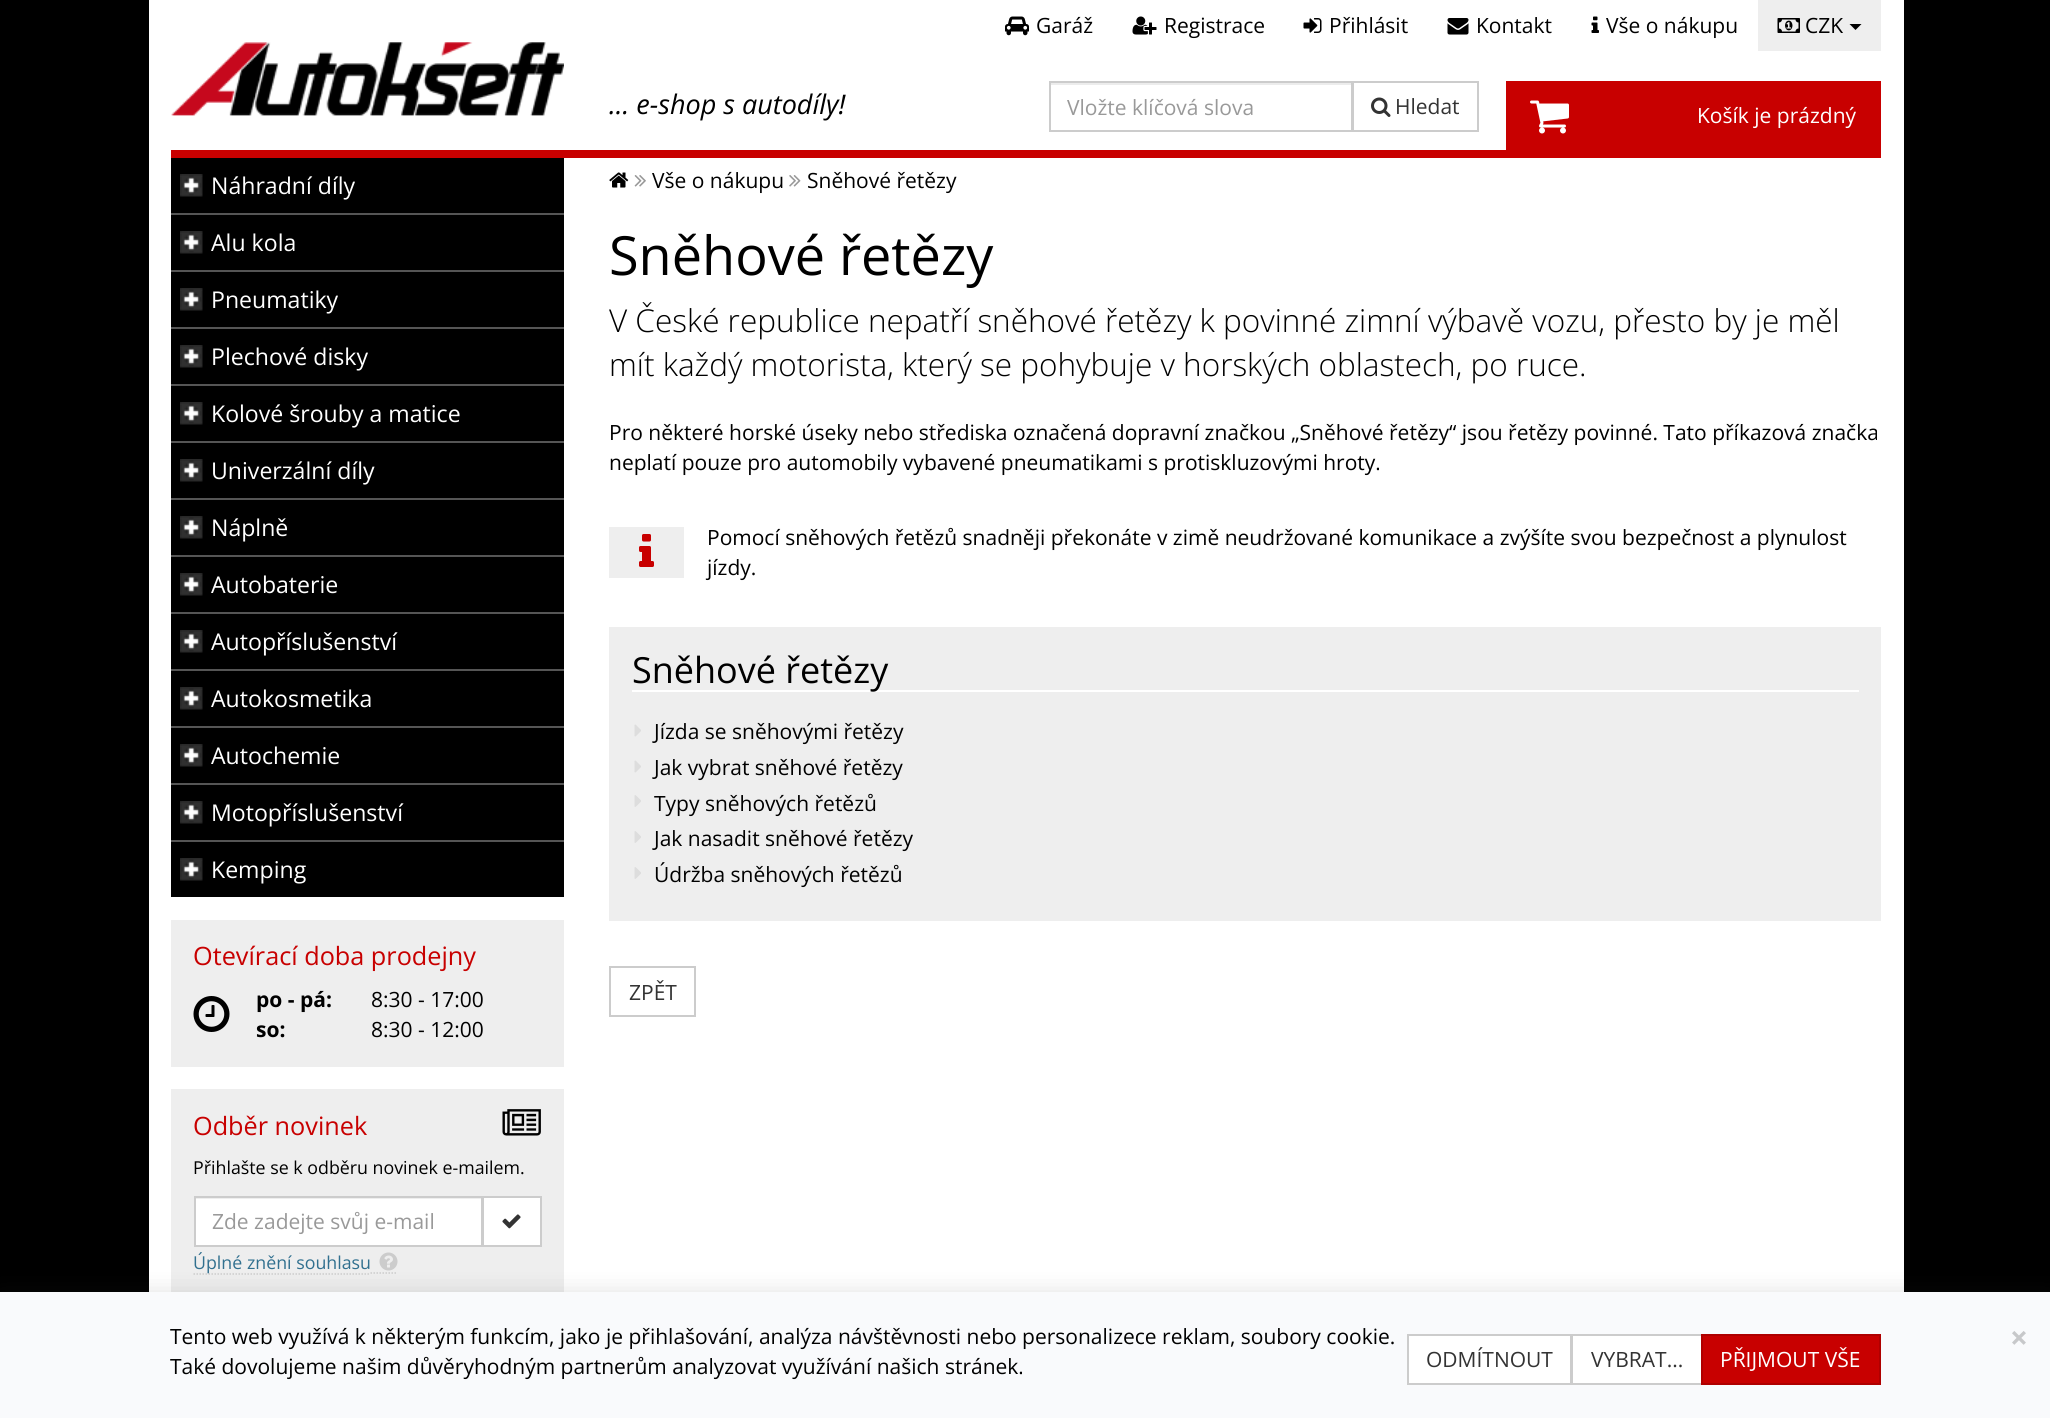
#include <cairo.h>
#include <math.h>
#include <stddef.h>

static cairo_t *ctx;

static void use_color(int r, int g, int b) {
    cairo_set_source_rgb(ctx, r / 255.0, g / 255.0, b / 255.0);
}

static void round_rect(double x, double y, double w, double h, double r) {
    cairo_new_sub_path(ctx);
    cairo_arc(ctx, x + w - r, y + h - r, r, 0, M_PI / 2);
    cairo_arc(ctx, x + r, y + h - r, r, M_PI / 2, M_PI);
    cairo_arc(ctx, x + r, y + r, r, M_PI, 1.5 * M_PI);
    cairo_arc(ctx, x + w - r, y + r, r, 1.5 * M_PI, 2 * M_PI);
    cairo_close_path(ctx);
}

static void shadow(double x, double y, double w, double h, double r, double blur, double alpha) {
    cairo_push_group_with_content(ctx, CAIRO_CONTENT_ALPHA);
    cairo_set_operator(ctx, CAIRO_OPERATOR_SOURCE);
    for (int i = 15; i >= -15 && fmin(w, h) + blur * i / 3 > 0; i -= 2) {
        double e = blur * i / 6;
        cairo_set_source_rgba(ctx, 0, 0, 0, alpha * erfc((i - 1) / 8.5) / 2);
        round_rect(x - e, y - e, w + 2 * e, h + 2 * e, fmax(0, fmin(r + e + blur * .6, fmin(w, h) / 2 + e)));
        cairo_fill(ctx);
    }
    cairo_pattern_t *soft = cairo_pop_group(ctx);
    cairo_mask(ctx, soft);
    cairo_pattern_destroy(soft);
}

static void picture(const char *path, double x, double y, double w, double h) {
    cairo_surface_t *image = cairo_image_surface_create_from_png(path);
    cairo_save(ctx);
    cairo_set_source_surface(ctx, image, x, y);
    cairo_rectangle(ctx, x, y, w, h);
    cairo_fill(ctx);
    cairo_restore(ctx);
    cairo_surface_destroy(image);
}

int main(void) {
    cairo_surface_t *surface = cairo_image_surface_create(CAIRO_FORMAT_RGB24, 2050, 1418);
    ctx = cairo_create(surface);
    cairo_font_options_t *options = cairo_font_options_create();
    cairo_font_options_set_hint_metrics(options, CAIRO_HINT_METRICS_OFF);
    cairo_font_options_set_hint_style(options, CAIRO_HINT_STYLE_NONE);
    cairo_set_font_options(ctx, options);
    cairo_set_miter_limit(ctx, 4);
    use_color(0, 0, 0);
    cairo_paint(ctx);
    use_color(255, 255, 255);
    cairo_rectangle(ctx, 149, 0, 1755, 1292);
    cairo_fill(ctx);
    use_color(200, 0, 0);
    cairo_rectangle(ctx, 171, 150, 1710, 8);
    cairo_fill(ctx);
    picture("img1.png", 1005, 16, 24, 20);
    cairo_select_font_face(ctx, "Open Sans", CAIRO_FONT_SLANT_NORMAL, CAIRO_FONT_WEIGHT_NORMAL);
    cairo_set_font_size(ctx, 21);
    use_color(0, 0, 0);
    cairo_move_to(ctx, 1036, 33);
    cairo_show_text(ctx, "Garáž");
    picture("img2.png", 1132, 16, 25, 19);
    cairo_move_to(ctx, 1164, 33);
    cairo_show_text(ctx, "Registrace");
    picture("img3.png", 1303, 18, 19, 15);
    cairo_move_to(ctx, 1329, 33);
    cairo_show_text(ctx, "Přihlásit");
    picture("img4.png", 1447, 18, 22, 17);
    cairo_move_to(ctx, 1476, 33);
    cairo_show_text(ctx, "Kontakt");
    picture("img5.png", 1591, 16, 8, 17);
    cairo_move_to(ctx, 1606, 33);
    cairo_show_text(ctx, "Vše o nákupu");
    use_color(238, 238, 238);
    cairo_rectangle(ctx, 1758, 0, 123, 51);
    cairo_fill(ctx);
    picture("img6.png", 1777, 18, 23, 15);
    use_color(0, 0, 0);
    cairo_move_to(ctx, 1805, 33);
    cairo_show_text(ctx, "CZK");
    cairo_new_path(ctx);
    cairo_move_to(ctx, 1849.5, 24);
    cairo_line_to(ctx, 1861.5, 24);
    cairo_line_to(ctx, 1855.5, 30);
    cairo_close_path(ctx);
    cairo_fill(ctx);
    picture("img7.png", 171, 42, 393, 74);
    cairo_select_font_face(ctx, "Open Sans", CAIRO_FONT_SLANT_ITALIC, CAIRO_FONT_WEIGHT_NORMAL);
    cairo_set_font_size(ctx, 27);
    cairo_move_to(ctx, 609, 114);
    cairo_show_text(ctx, "... e-shop s autodíly!");
    use_color(236, 236, 236);
    cairo_rectangle(ctx, 1050, 83, 302, 2);
    cairo_fill(ctx);
    cairo_rectangle(ctx, 1050, 82, 302, 49);
    use_color(204, 204, 204);
    cairo_stroke(ctx);
    cairo_select_font_face(ctx, "Open Sans", CAIRO_FONT_SLANT_NORMAL, CAIRO_FONT_WEIGHT_NORMAL);
    cairo_set_font_size(ctx, 21);
    use_color(153, 153, 153);
    cairo_move_to(ctx, 1067, 115);
    cairo_show_text(ctx, "Vložte klíčová slova");
    cairo_rectangle(ctx, 1353, 82, 125, 49);
    use_color(204, 204, 204);
    cairo_stroke(ctx);
    picture("img8.png", 1371, 97, 20, 20);
    use_color(51, 51, 51);
    cairo_move_to(ctx, 1395, 114);
    cairo_show_text(ctx, "Hledat");
    use_color(200, 0, 0);
    cairo_rectangle(ctx, 1506, 81, 375, 69);
    cairo_fill(ctx);
    picture("img9.png", 1530, 100, 39, 34);
    use_color(255, 255, 255);
    cairo_move_to(ctx, 1697, 123);
    cairo_show_text(ctx, "Košík je prázdný");
    use_color(0, 0, 0);
    cairo_rectangle(ctx, 171, 158, 393, 739);
    cairo_fill(ctx);
    use_color(85, 85, 85);
    cairo_rectangle(ctx, 171, 213, 393, 2);
    cairo_fill(ctx);
    picture("img10.png", 180, 174, 23, 23);
    cairo_set_font_size(ctx, 23.1);
    use_color(255, 255, 255);
    cairo_move_to(ctx, 211, 194);
    cairo_show_text(ctx, "Náhradní díly");
    use_color(85, 85, 85);
    cairo_rectangle(ctx, 171, 270, 393, 2);
    cairo_fill(ctx);
    picture("img10.png", 180, 231, 23, 23);
    use_color(255, 255, 255);
    cairo_move_to(ctx, 211, 251);
    cairo_show_text(ctx, "Alu kola");
    use_color(85, 85, 85);
    cairo_rectangle(ctx, 171, 327, 393, 2);
    cairo_fill(ctx);
    picture("img10.png", 180, 288, 23, 23);
    use_color(255, 255, 255);
    cairo_move_to(ctx, 211, 308);
    cairo_show_text(ctx, "Pneumatiky");
    use_color(85, 85, 85);
    cairo_rectangle(ctx, 171, 384, 393, 2);
    cairo_fill(ctx);
    picture("img10.png", 180, 345, 23, 23);
    use_color(255, 255, 255);
    cairo_move_to(ctx, 211, 365);
    cairo_show_text(ctx, "Plechové disky");
    use_color(85, 85, 85);
    cairo_rectangle(ctx, 171, 441, 393, 2);
    cairo_fill(ctx);
    picture("img10.png", 180, 402, 23, 23);
    use_color(255, 255, 255);
    cairo_move_to(ctx, 211, 422);
    cairo_show_text(ctx, "Kolové šrouby a matice");
    use_color(85, 85, 85);
    cairo_rectangle(ctx, 171, 498, 393, 2);
    cairo_fill(ctx);
    picture("img10.png", 180, 459, 23, 23);
    use_color(255, 255, 255);
    cairo_move_to(ctx, 211, 479);
    cairo_show_text(ctx, "Univerzální díly");
    use_color(85, 85, 85);
    cairo_rectangle(ctx, 171, 555, 393, 2);
    cairo_fill(ctx);
    picture("img10.png", 180, 516, 23, 23);
    use_color(255, 255, 255);
    cairo_move_to(ctx, 211, 536);
    cairo_show_text(ctx, "Náplně");
    use_color(85, 85, 85);
    cairo_rectangle(ctx, 171, 612, 393, 2);
    cairo_fill(ctx);
    picture("img10.png", 180, 573, 23, 23);
    use_color(255, 255, 255);
    cairo_move_to(ctx, 211, 593);
    cairo_show_text(ctx, "Autobaterie");
    use_color(85, 85, 85);
    cairo_rectangle(ctx, 171, 669, 393, 2);
    cairo_fill(ctx);
    picture("img10.png", 180, 630, 23, 23);
    use_color(255, 255, 255);
    cairo_move_to(ctx, 211, 650);
    cairo_show_text(ctx, "Autopříslušenství");
    use_color(85, 85, 85);
    cairo_rectangle(ctx, 171, 726, 393, 2);
    cairo_fill(ctx);
    picture("img10.png", 180, 687, 23, 23);
    use_color(255, 255, 255);
    cairo_move_to(ctx, 211, 707);
    cairo_show_text(ctx, "Autokosmetika");
    use_color(85, 85, 85);
    cairo_rectangle(ctx, 171, 783, 393, 2);
    cairo_fill(ctx);
    picture("img10.png", 180, 744, 23, 23);
    use_color(255, 255, 255);
    cairo_move_to(ctx, 211, 764);
    cairo_show_text(ctx, "Autochemie");
    use_color(85, 85, 85);
    cairo_rectangle(ctx, 171, 840, 393, 2);
    cairo_fill(ctx);
    picture("img10.png", 180, 801, 23, 23);
    use_color(255, 255, 255);
    cairo_move_to(ctx, 211, 821);
    cairo_show_text(ctx, "Motopříslušenství");
    picture("img10.png", 180, 858, 23, 23);
    cairo_move_to(ctx, 211, 878);
    cairo_show_text(ctx, "Kemping");
    use_color(238, 238, 238);
    cairo_rectangle(ctx, 171, 920, 393, 147);
    cairo_fill(ctx);
    cairo_set_font_size(ctx, 25.25);
    use_color(200, 0, 0);
    cairo_move_to(ctx, 193, 965);
    cairo_show_text(ctx, "Otevírací doba prodejny");
    picture("img11.png", 193, 996, 37, 36);
    cairo_select_font_face(ctx, "Open Sans", CAIRO_FONT_SLANT_NORMAL, CAIRO_FONT_WEIGHT_BOLD);
    cairo_set_font_size(ctx, 21);
    use_color(0, 0, 0);
    cairo_move_to(ctx, 256, 1007);
    cairo_show_text(ctx, "po - pá:");
    cairo_select_font_face(ctx, "Open Sans", CAIRO_FONT_SLANT_NORMAL, CAIRO_FONT_WEIGHT_NORMAL);
    cairo_move_to(ctx, 371, 1007);
    cairo_show_text(ctx, "8:30 - 17:00");
    cairo_select_font_face(ctx, "Open Sans", CAIRO_FONT_SLANT_NORMAL, CAIRO_FONT_WEIGHT_BOLD);
    cairo_move_to(ctx, 256, 1037);
    cairo_show_text(ctx, "so:");
    cairo_select_font_face(ctx, "Open Sans", CAIRO_FONT_SLANT_NORMAL, CAIRO_FONT_WEIGHT_NORMAL);
    cairo_move_to(ctx, 371, 1037);
    cairo_show_text(ctx, "8:30 - 12:00");
    use_color(238, 238, 238);
    cairo_rectangle(ctx, 171, 1089, 393, 203);
    cairo_fill(ctx);
    cairo_set_font_size(ctx, 25.25);
    use_color(200, 0, 0);
    cairo_move_to(ctx, 193, 1135);
    cairo_show_text(ctx, "Odběr novinek");
    picture("img12.png", 502, 1109, 39, 27);
    cairo_set_font_size(ctx, 17.8);
    use_color(0, 0, 0);
    cairo_move_to(ctx, 193, 1174);
    cairo_show_text(ctx, "Přihlašte se k odběru novinek e-mailem.");
    use_color(255, 255, 255);
    cairo_rectangle(ctx, 196, 1199, 285, 46);
    cairo_fill(ctx);
    cairo_rectangle(ctx, 195, 1197, 287, 49);
    use_color(204, 204, 204);
    cairo_stroke(ctx);
    cairo_set_font_size(ctx, 21);
    use_color(153, 153, 153);
    cairo_move_to(ctx, 212, 1229);
    cairo_show_text(ctx, "Zde zadejte svůj e-mail");
    use_color(255, 255, 255);
    cairo_rectangle(ctx, 483, 1197, 58, 49);
    cairo_fill_preserve(ctx);
    use_color(204, 204, 204);
    cairo_stroke(ctx);
    picture("img13.png", 502, 1214, 19, 15);
    cairo_new_path(ctx);
    cairo_move_to(ctx, 193.5, 1274);
    cairo_line_to(ctx, 370.5, 1274);
    cairo_set_line_width(ctx, 1.5);
    cairo_set_dash(ctx, (double[]){1.5, 1.5}, 2, 0);
    cairo_stroke(ctx);
    cairo_set_font_size(ctx, 17.8);
    use_color(49, 112, 143);
    cairo_move_to(ctx, 193, 1269);
    cairo_show_text(ctx, "Úplné znění souhlasu");
    cairo_new_path(ctx);
    cairo_move_to(ctx, 370.5, 1273);
    cairo_line_to(ctx, 397.5, 1273);
    use_color(204, 204, 204);
    cairo_stroke(ctx);
    picture("img14.png", 379, 1252, 19, 19);
    picture("img15.png", 609, 172, 20, 16);
    picture("img16.png", 634, 175, 12, 12);
    cairo_set_font_size(ctx, 21);
    use_color(0, 0, 0);
    cairo_move_to(ctx, 652, 188);
    cairo_show_text(ctx, "Vše o nákupu");
    picture("img17.png", 789, 175, 12, 12);
    cairo_move_to(ctx, 807, 188);
    cairo_show_text(ctx, "Sněhové řetězy");
    cairo_set_font_size(ctx, 54);
    cairo_move_to(ctx, 609, 275);
    cairo_show_text(ctx, "Sněhové řetězy");
    cairo_select_font_face(ctx, "Open Sans Light", CAIRO_FONT_SLANT_NORMAL, CAIRO_FONT_WEIGHT_NORMAL);
    cairo_set_font_size(ctx, 31.5);
    cairo_move_to(ctx, 609, 332);
    cairo_show_text(ctx, "V České republice nepatří sněhové řetězy k povinné zimní výbavě vozu, přesto by je měl");
    cairo_move_to(ctx, 609, 376);
    cairo_show_text(ctx, "mít každý motorista, který se pohybuje v horských oblastech, po ruce.");
    cairo_select_font_face(ctx, "Open Sans", CAIRO_FONT_SLANT_NORMAL, CAIRO_FONT_WEIGHT_NORMAL);
    cairo_set_font_size(ctx, 21);
    cairo_move_to(ctx, 609, 440);
    cairo_show_text(ctx, "Pro některé horské úseky nebo střediska označená dopravní značkou „Sněhové řetězy“ jsou řetězy povinné. Tato příkazová značka");
    cairo_move_to(ctx, 609, 470);
    cairo_show_text(ctx, "neplatí pouze pro automobily vybavené pneumatikami s protiskluzovými hroty.");
    use_color(238, 238, 238);
    cairo_rectangle(ctx, 609, 527, 75, 51);
    cairo_fill(ctx);
    picture("img18.png", 639, 534, 15, 33);
    use_color(0, 0, 0);
    cairo_move_to(ctx, 707, 545);
    cairo_show_text(ctx, "Pomocí sněhových řetězů snadněji překonáte v zimě neudržované komunikace a zvýšíte svou bezpečnost a plynulost");
    cairo_move_to(ctx, 707, 575);
    cairo_show_text(ctx, "jízdy.");
    use_color(238, 238, 238);
    cairo_rectangle(ctx, 609, 627, 1272, 294);
    cairo_fill(ctx);
    use_color(255, 255, 255);
    cairo_rectangle(ctx, 632, 690, 1227, 2);
    cairo_fill(ctx);
    cairo_set_font_size(ctx, 36);
    use_color(0, 0, 0);
    cairo_move_to(ctx, 632, 683);
    cairo_show_text(ctx, "Sněhové řetězy");
    picture("img19.png", 634, 724, 7, 13);
    cairo_set_font_size(ctx, 21);
    cairo_move_to(ctx, 654, 739);
    cairo_show_text(ctx, "Jízda se sněhovými řetězy");
    picture("img19.png", 634, 760, 7, 13);
    cairo_move_to(ctx, 654, 775);
    cairo_show_text(ctx, "Jak vybrat sněhové řetězy");
    picture("img20.png", 634, 795, 7, 12);
    cairo_move_to(ctx, 654, 811);
    cairo_show_text(ctx, "Typy sněhových řetězů");
    picture("img20.png", 634, 831, 7, 12);
    cairo_move_to(ctx, 654, 846);
    cairo_show_text(ctx, "Jak nasadit sněhové řetězy");
    picture("img20.png", 634, 867, 7, 12);
    cairo_move_to(ctx, 654, 882);
    cairo_show_text(ctx, "Údržba sněhových řetězů");
    cairo_rectangle(ctx, 610, 967, 85, 49);
    use_color(204, 204, 204);
    cairo_set_line_width(ctx, 2);
    cairo_set_dash(ctx, NULL, 0, 0);
    cairo_stroke(ctx);
    use_color(51, 51, 51);
    cairo_move_to(ctx, 629, 1000);
    cairo_show_text(ctx, "ZPĚT");
    use_color(55, 55, 55);
    shadow(0, 1292, 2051, 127, 0, 11, 0.15);
    use_color(249, 250, 252);
    cairo_rectangle(ctx, 0, 1292, 2050, 126);
    cairo_fill(ctx);
    use_color(0, 0, 0);
    cairo_move_to(ctx, 170, 1344);
    cairo_show_text(ctx, "Tento web využívá k některým funkcím, jako je přihlašování, analýza návštěvnosti nebo personalizece reklam, soubory cookie.");
    cairo_move_to(ctx, 170, 1374);
    cairo_show_text(ctx, "Také dovolujeme našim důvěryhodným partnerům analyzovat využívání našich stránek.");
    use_color(255, 255, 255);
    cairo_rectangle(ctx, 1408, 1335, 163, 49);
    cairo_fill_preserve(ctx);
    use_color(204, 204, 204);
    cairo_stroke(ctx);
    use_color(51, 51, 51);
    cairo_move_to(ctx, 1426, 1367);
    cairo_show_text(ctx, "ODMÍTNOUT");
    use_color(255, 255, 255);
    cairo_rectangle(ctx, 1572, 1335, 130, 49);
    cairo_fill_preserve(ctx);
    use_color(204, 204, 204);
    cairo_stroke(ctx);
    use_color(51, 51, 51);
    cairo_move_to(ctx, 1591, 1367);
    cairo_show_text(ctx, "VYBRAT...");
    use_color(200, 0, 0);
    cairo_rectangle(ctx, 1702, 1335, 178, 49);
    cairo_fill_preserve(ctx);
    use_color(175, 0, 0);
    cairo_stroke(ctx);
    use_color(255, 255, 255);
    cairo_move_to(ctx, 1720, 1367);
    cairo_show_text(ctx, "PŘIJMOUT VŠE");
    cairo_select_font_face(ctx, "Open Sans", CAIRO_FONT_SLANT_NORMAL, CAIRO_FONT_WEIGHT_BOLD);
    cairo_set_font_size(ctx, 31.5);
    use_color(199, 200, 202);
    cairo_move_to(ctx, 2010, 1349);
    cairo_show_text(ctx, "×");
    cairo_surface_write_to_png(surface, "result.png");
    cairo_font_options_destroy(options);
    cairo_destroy(ctx);
    cairo_surface_destroy(surface);
    return 0;
}
